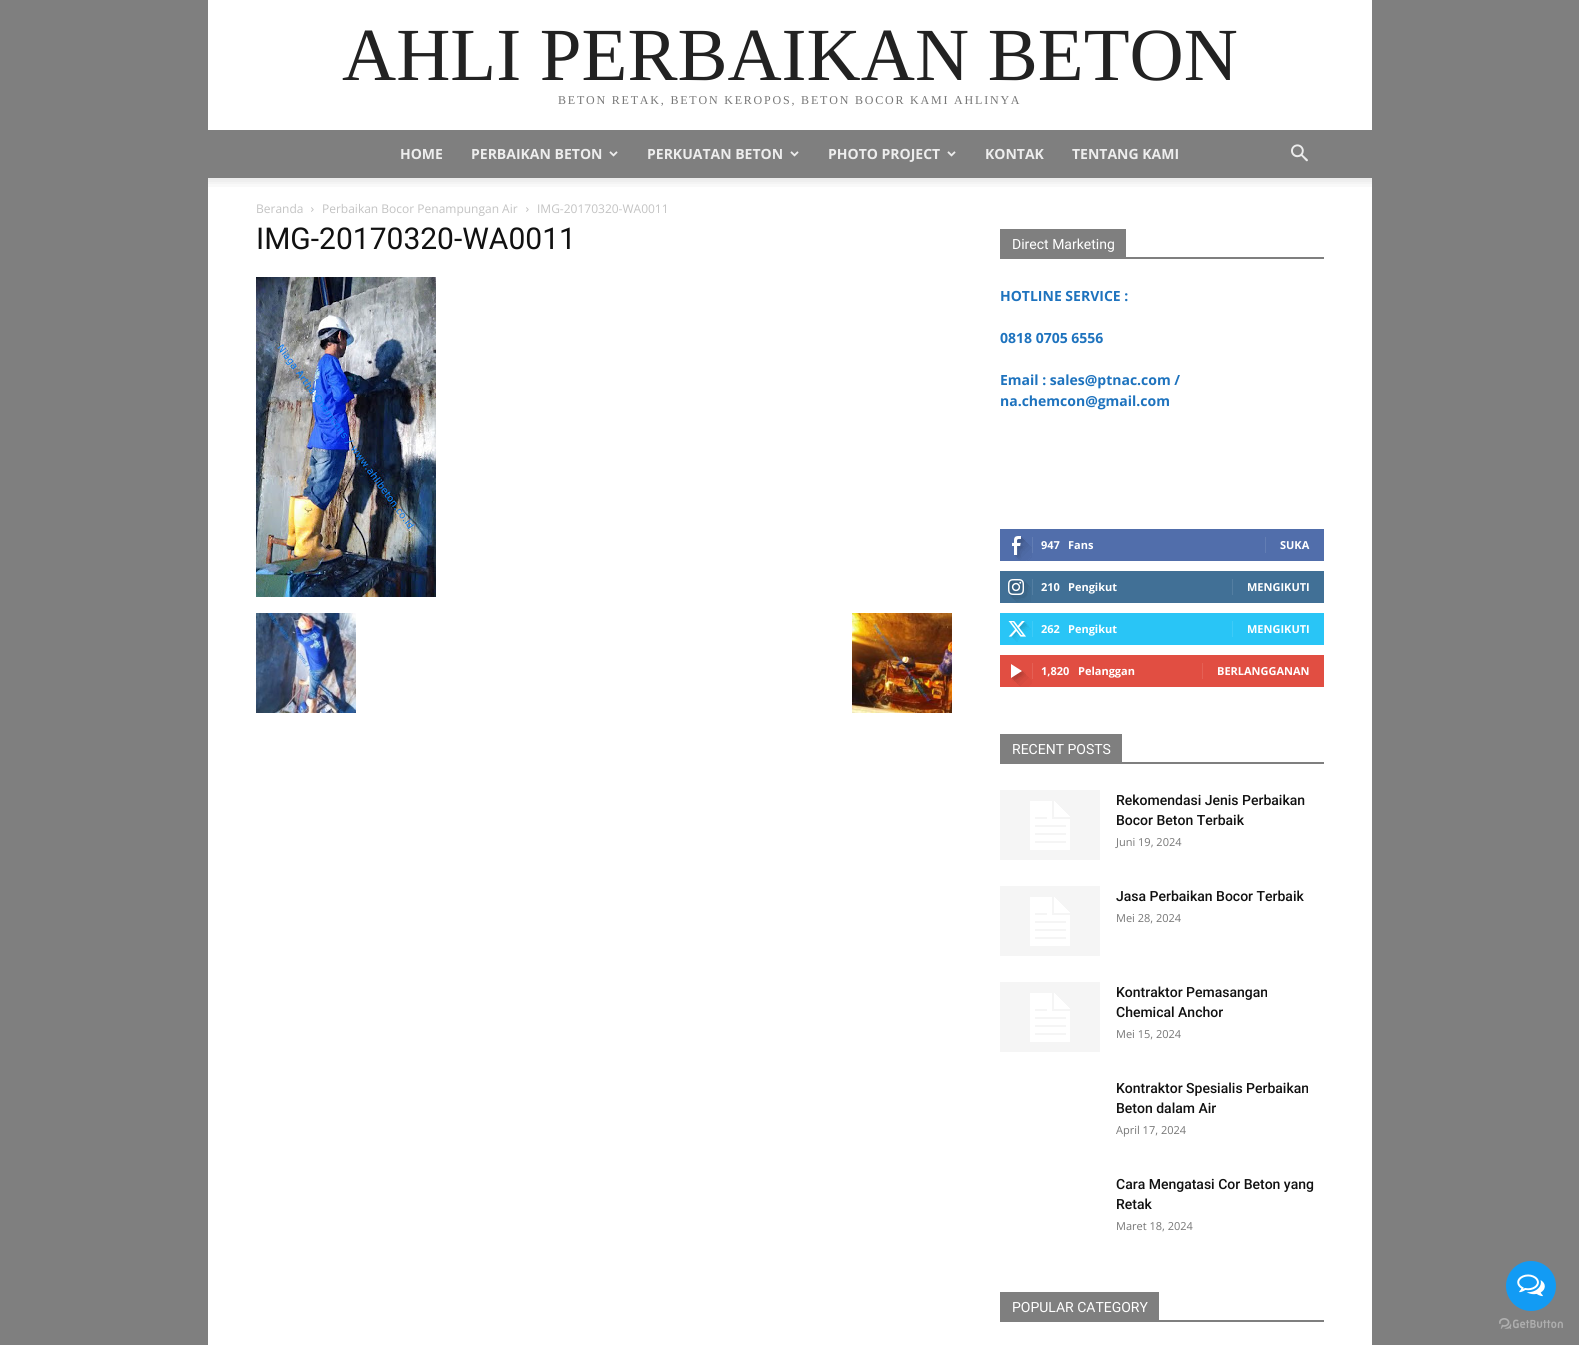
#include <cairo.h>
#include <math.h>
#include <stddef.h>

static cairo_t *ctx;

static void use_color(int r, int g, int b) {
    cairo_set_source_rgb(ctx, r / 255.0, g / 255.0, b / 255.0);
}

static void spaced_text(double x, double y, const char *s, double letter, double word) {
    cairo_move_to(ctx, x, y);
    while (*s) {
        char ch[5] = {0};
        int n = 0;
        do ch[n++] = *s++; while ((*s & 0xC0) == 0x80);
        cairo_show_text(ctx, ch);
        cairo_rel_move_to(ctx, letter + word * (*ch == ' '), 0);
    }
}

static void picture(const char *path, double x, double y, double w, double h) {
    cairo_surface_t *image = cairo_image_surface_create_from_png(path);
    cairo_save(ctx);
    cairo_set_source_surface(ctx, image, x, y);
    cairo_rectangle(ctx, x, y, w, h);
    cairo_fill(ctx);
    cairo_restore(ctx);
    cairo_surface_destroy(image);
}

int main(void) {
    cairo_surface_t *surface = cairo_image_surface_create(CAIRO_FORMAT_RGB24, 1579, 1345);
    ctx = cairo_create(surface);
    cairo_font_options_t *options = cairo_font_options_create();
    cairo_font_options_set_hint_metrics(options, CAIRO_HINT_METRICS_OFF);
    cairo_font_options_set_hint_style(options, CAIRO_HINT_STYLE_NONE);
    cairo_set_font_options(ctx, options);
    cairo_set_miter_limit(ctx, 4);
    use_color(127, 127, 127);
    cairo_paint(ctx);
    use_color(255, 255, 255);
    cairo_rectangle(ctx, 208, 0, 1164, 130);
    cairo_fill(ctx);
    cairo_select_font_face(ctx, "Liberation Serif", CAIRO_FONT_SLANT_NORMAL, CAIRO_FONT_WEIGHT_NORMAL);
    cairo_set_font_size(ctx, 75);
    use_color(34, 34, 34);
    cairo_move_to(ctx, 342, 80);
    cairo_show_text(ctx, "AHLI PERBAIKAN BETON");
    cairo_set_font_size(ctx, 12);
    use_color(118, 118, 118);
    spaced_text(558, 104, "BETON RETAK, BETON KEROPOS, BETON BOCOR KAMI AHLINYA", 1.8, 0);
    cairo_select_font_face(ctx, "Open Sans", CAIRO_FONT_SLANT_NORMAL, CAIRO_FONT_WEIGHT_BOLD);
    cairo_set_font_size(ctx, 14);
    use_color(237, 237, 237);
    cairo_move_to(ctx, 400, 159);
    cairo_show_text(ctx, "HOME");
    cairo_move_to(ctx, 471, 159);
    cairo_show_text(ctx, "PERBAIKAN BETON");
    picture("img1.png", 609, 151, 9, 6);
    cairo_move_to(ctx, 647, 159);
    cairo_show_text(ctx, "PERKUATAN BETON");
    picture("img1.png", 790, 151, 9, 6);
    cairo_move_to(ctx, 828, 159);
    cairo_show_text(ctx, "PHOTO PROJECT");
    picture("img1.png", 947, 151, 9, 6);
    cairo_move_to(ctx, 985, 159);
    cairo_show_text(ctx, "KONTAK");
    cairo_move_to(ctx, 1072, 159);
    cairo_show_text(ctx, "TENTANG KAMI");
    picture("img2.png", 1291, 144, 17, 18);
    use_color(255, 255, 255);
    cairo_rectangle(ctx, 208, 178, 1164, 1167);
    cairo_fill(ctx);
    picture("img3.png", 208, 178, 1164, 9);
    cairo_select_font_face(ctx, "Open Sans", CAIRO_FONT_SLANT_NORMAL, CAIRO_FONT_WEIGHT_NORMAL);
    cairo_set_font_size(ctx, 12);
    use_color(195, 195, 195);
    cairo_move_to(ctx, 256, 213);
    cairo_show_text(ctx, "Beranda");
    picture("img4.png", 311, 207, 3, 5);
    cairo_move_to(ctx, 322, 213);
    cairo_show_text(ctx, "Perbaikan Bocor Penampungan Air");
    picture("img4.png", 526, 207, 3, 5);
    cairo_move_to(ctx, 537, 213);
    cairo_show_text(ctx, "IMG-20170320-WA0011");
    cairo_select_font_face(ctx, "Roboto", CAIRO_FONT_SLANT_NORMAL, CAIRO_FONT_WEIGHT_NORMAL);
    cairo_set_font_size(ctx, 30);
    use_color(17, 17, 17);
    cairo_move_to(ctx, 256, 249);
    cairo_show_text(ctx, "IMG-20170320-WA0011");
    picture("img5.png", 256, 277, 180, 320);
    picture("img6.png", 256, 613, 100, 100);
    picture("img7.png", 852, 613, 100, 100);
    use_color(127, 127, 127);
    cairo_rectangle(ctx, 1000, 257, 324, 2);
    cairo_fill(ctx);
    cairo_rectangle(ctx, 1000, 229, 126, 28);
    cairo_fill(ctx);
    cairo_set_font_size(ctx, 14);
    use_color(255, 255, 255);
    cairo_move_to(ctx, 1012, 249);
    cairo_show_text(ctx, "Direct Marketing");
    cairo_select_font_face(ctx, "Open Sans", CAIRO_FONT_SLANT_NORMAL, CAIRO_FONT_WEIGHT_BOLD);
    use_color(30, 115, 190);
    cairo_move_to(ctx, 1000, 301);
    cairo_show_text(ctx, "HOTLINE SERVICE :");
    cairo_move_to(ctx, 1000, 343);
    cairo_show_text(ctx, "0818 0705 6556");
    cairo_move_to(ctx, 1000, 385);
    cairo_show_text(ctx, "Email : sales@ptnac.com /");
    cairo_move_to(ctx, 1000, 406);
    cairo_show_text(ctx, "na.chemcon@gmail.com");
    use_color(81, 110, 171);
    cairo_rectangle(ctx, 1000, 529, 324, 32);
    cairo_fill(ctx);
    picture("img8.png", 1012, 536, 20, 25);
    use_color(98, 125, 179);
    cairo_rectangle(ctx, 1032, 537, 1, 16);
    cairo_fill(ctx);
    cairo_set_font_size(ctx, 11);
    use_color(255, 255, 255);
    cairo_move_to(ctx, 1041, 549);
    cairo_show_text(ctx, "947");
    cairo_move_to(ctx, 1068, 549);
    cairo_show_text(ctx, "Fans");
    use_color(98, 125, 179);
    cairo_rectangle(ctx, 1265, 537, 1, 16);
    cairo_fill(ctx);
    use_color(255, 255, 255);
    cairo_move_to(ctx, 1280, 549);
    cairo_show_text(ctx, "SUKA");
    use_color(65, 112, 150);
    cairo_rectangle(ctx, 1000, 571, 324, 32);
    cairo_fill(ctx);
    picture("img9.png", 1008, 579, 23, 23);
    use_color(84, 126, 161);
    cairo_rectangle(ctx, 1032, 579, 1, 16);
    cairo_fill(ctx);
    use_color(255, 255, 255);
    cairo_move_to(ctx, 1041, 591);
    cairo_show_text(ctx, "210");
    cairo_move_to(ctx, 1068, 591);
    cairo_show_text(ctx, "Pengikut");
    use_color(84, 126, 161);
    cairo_rectangle(ctx, 1232, 579, 1, 16);
    cairo_fill(ctx);
    use_color(255, 255, 255);
    cairo_move_to(ctx, 1247, 591);
    cairo_show_text(ctx, "MENGIKUTI");
    use_color(41, 197, 246);
    cairo_rectangle(ctx, 1000, 613, 324, 32);
    cairo_fill(ctx);
    picture("img10.png", 1008, 621, 23, 21);
    use_color(62, 203, 247);
    cairo_rectangle(ctx, 1032, 621, 1, 16);
    cairo_fill(ctx);
    use_color(255, 255, 255);
    cairo_move_to(ctx, 1041, 633);
    cairo_show_text(ctx, "262");
    cairo_move_to(ctx, 1068, 633);
    cairo_show_text(ctx, "Pengikut");
    use_color(62, 203, 247);
    cairo_rectangle(ctx, 1232, 621, 1, 16);
    cairo_fill(ctx);
    use_color(255, 255, 255);
    cairo_move_to(ctx, 1247, 633);
    cairo_show_text(ctx, "MENGIKUTI");
    use_color(225, 78, 66);
    cairo_rectangle(ctx, 1000, 655, 324, 32);
    cairo_fill(ctx);
    picture("img11.png", 1011, 664, 21, 23);
    use_color(228, 96, 85);
    cairo_rectangle(ctx, 1032, 663, 1, 16);
    cairo_fill(ctx);
    use_color(255, 255, 255);
    cairo_move_to(ctx, 1041, 675);
    cairo_show_text(ctx, "1,820");
    cairo_move_to(ctx, 1078, 675);
    cairo_show_text(ctx, "Pelanggan");
    use_color(228, 96, 85);
    cairo_rectangle(ctx, 1202, 663, 1, 16);
    cairo_fill(ctx);
    use_color(255, 255, 255);
    cairo_move_to(ctx, 1217, 675);
    cairo_show_text(ctx, "BERLANGGANAN");
    use_color(127, 127, 127);
    cairo_rectangle(ctx, 1000, 762, 324, 2);
    cairo_fill(ctx);
    cairo_rectangle(ctx, 1000, 734, 122, 28);
    cairo_fill(ctx);
    cairo_select_font_face(ctx, "Roboto", CAIRO_FONT_SLANT_NORMAL, CAIRO_FONT_WEIGHT_NORMAL);
    cairo_set_font_size(ctx, 14);
    use_color(255, 255, 255);
    cairo_move_to(ctx, 1012, 754);
    cairo_show_text(ctx, "RECENT POSTS");
    picture("img12.png", 1000, 790, 100, 70);
    cairo_select_font_face(ctx, "Roboto Medium", CAIRO_FONT_SLANT_NORMAL, CAIRO_FONT_WEIGHT_NORMAL);
    use_color(17, 17, 17);
    cairo_move_to(ctx, 1116, 805);
    cairo_show_text(ctx, "Rekomendasi Jenis Perbaikan");
    cairo_move_to(ctx, 1116, 825);
    cairo_show_text(ctx, "Bocor Beton Terbaik");
    cairo_select_font_face(ctx, "Open Sans", CAIRO_FONT_SLANT_NORMAL, CAIRO_FONT_WEIGHT_NORMAL);
    cairo_set_font_size(ctx, 11);
    use_color(118, 118, 118);
    cairo_move_to(ctx, 1116, 846);
    cairo_show_text(ctx, "Juni 19, 2024");
    picture("img12.png", 1000, 886, 100, 70);
    cairo_select_font_face(ctx, "Roboto Medium", CAIRO_FONT_SLANT_NORMAL, CAIRO_FONT_WEIGHT_NORMAL);
    cairo_set_font_size(ctx, 14);
    use_color(17, 17, 17);
    cairo_move_to(ctx, 1116, 901);
    cairo_show_text(ctx, "Jasa Perbaikan Bocor Terbaik");
    cairo_select_font_face(ctx, "Open Sans", CAIRO_FONT_SLANT_NORMAL, CAIRO_FONT_WEIGHT_NORMAL);
    cairo_set_font_size(ctx, 11);
    use_color(118, 118, 118);
    cairo_move_to(ctx, 1116, 922);
    cairo_show_text(ctx, "Mei 28, 2024");
    picture("img12.png", 1000, 982, 100, 70);
    cairo_select_font_face(ctx, "Roboto Medium", CAIRO_FONT_SLANT_NORMAL, CAIRO_FONT_WEIGHT_NORMAL);
    cairo_set_font_size(ctx, 14);
    use_color(17, 17, 17);
    cairo_move_to(ctx, 1116, 997);
    cairo_show_text(ctx, "Kontraktor Pemasangan");
    cairo_move_to(ctx, 1116, 1017);
    cairo_show_text(ctx, "Chemical Anchor");
    cairo_select_font_face(ctx, "Open Sans", CAIRO_FONT_SLANT_NORMAL, CAIRO_FONT_WEIGHT_NORMAL);
    cairo_set_font_size(ctx, 11);
    use_color(118, 118, 118);
    cairo_move_to(ctx, 1116, 1038);
    cairo_show_text(ctx, "Mei 15, 2024");
    cairo_select_font_face(ctx, "Roboto Medium", CAIRO_FONT_SLANT_NORMAL, CAIRO_FONT_WEIGHT_NORMAL);
    cairo_set_font_size(ctx, 14);
    use_color(17, 17, 17);
    cairo_move_to(ctx, 1116, 1093);
    cairo_show_text(ctx, "Kontraktor Spesialis Perbaikan");
    cairo_move_to(ctx, 1116, 1113);
    cairo_show_text(ctx, "Beton dalam Air");
    cairo_select_font_face(ctx, "Open Sans", CAIRO_FONT_SLANT_NORMAL, CAIRO_FONT_WEIGHT_NORMAL);
    cairo_set_font_size(ctx, 11);
    use_color(118, 118, 118);
    cairo_move_to(ctx, 1116, 1134);
    cairo_show_text(ctx, "April 17, 2024");
    cairo_select_font_face(ctx, "Roboto Medium", CAIRO_FONT_SLANT_NORMAL, CAIRO_FONT_WEIGHT_NORMAL);
    cairo_set_font_size(ctx, 14);
    use_color(17, 17, 17);
    cairo_move_to(ctx, 1116, 1189);
    cairo_show_text(ctx, "Cara Mengatasi Cor Beton yang");
    cairo_move_to(ctx, 1116, 1209);
    cairo_show_text(ctx, "Retak");
    cairo_select_font_face(ctx, "Open Sans", CAIRO_FONT_SLANT_NORMAL, CAIRO_FONT_WEIGHT_NORMAL);
    cairo_set_font_size(ctx, 11);
    use_color(118, 118, 118);
    cairo_move_to(ctx, 1116, 1230);
    cairo_show_text(ctx, "Maret 18, 2024");
    use_color(127, 127, 127);
    cairo_rectangle(ctx, 1000, 1320, 324, 2);
    cairo_fill(ctx);
    cairo_rectangle(ctx, 1000, 1292, 159, 28);
    cairo_fill(ctx);
    cairo_select_font_face(ctx, "Roboto", CAIRO_FONT_SLANT_NORMAL, CAIRO_FONT_WEIGHT_NORMAL);
    cairo_set_font_size(ctx, 14);
    use_color(255, 255, 255);
    cairo_move_to(ctx, 1012, 1312);
    cairo_show_text(ctx, "POPULAR CATEGORY");
    use_color(18, 155, 244);
    cairo_new_path(ctx);
    cairo_arc(ctx, 1531, 1286, 25, 0, 2 * M_PI);
    cairo_fill(ctx);
    picture("img13.png", 1517, 1274, 28, 23);
    picture("img14.png", 1499, 1318, 64, 11);
    cairo_surface_write_to_png(surface, "result.png");
    cairo_font_options_destroy(options);
    cairo_destroy(ctx);
    cairo_surface_destroy(surface);
    return 0;
}
